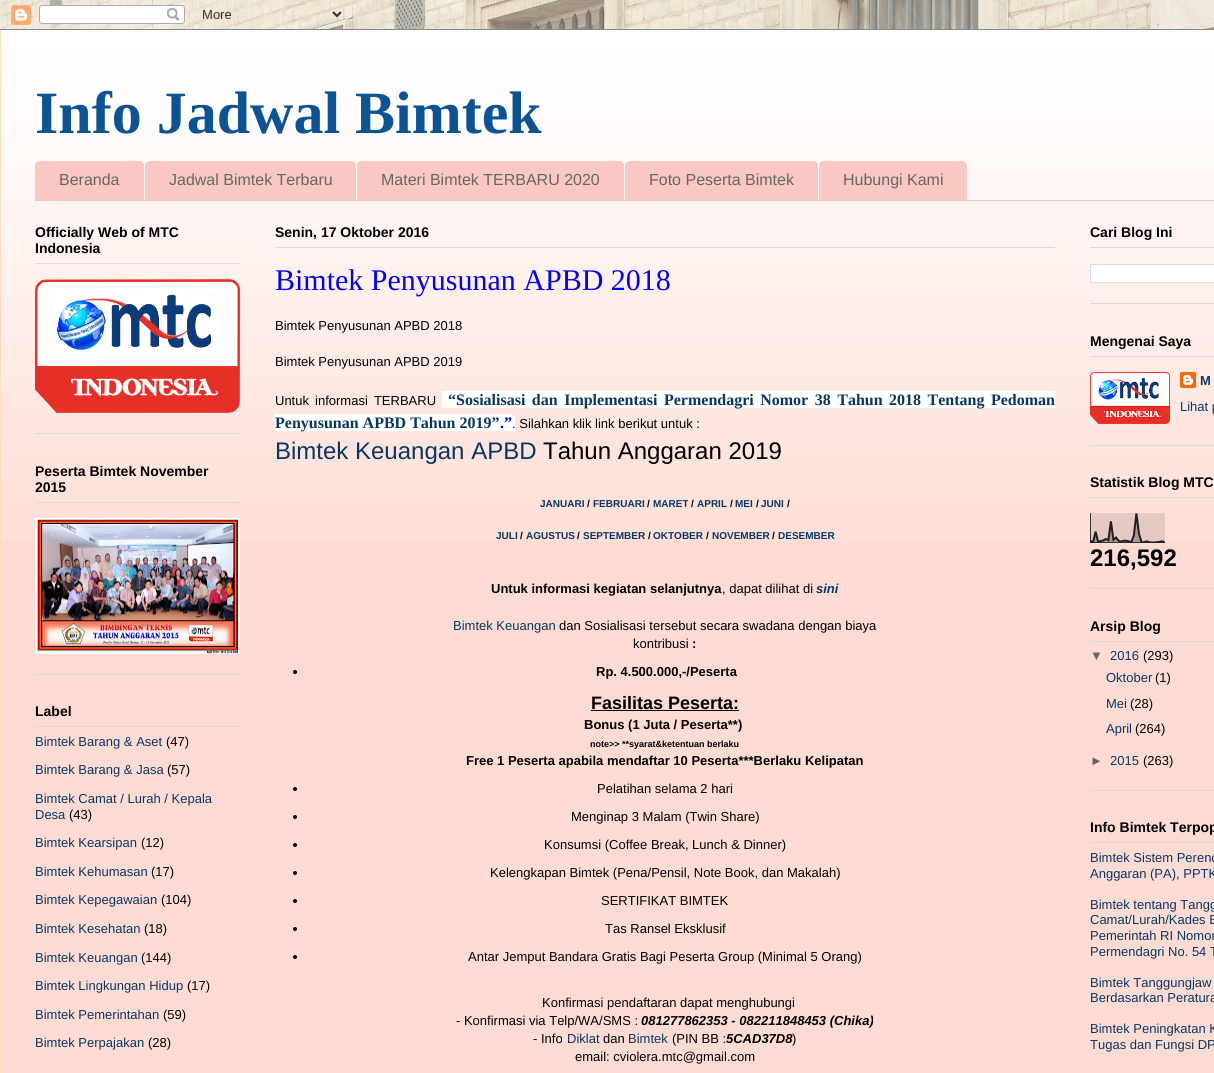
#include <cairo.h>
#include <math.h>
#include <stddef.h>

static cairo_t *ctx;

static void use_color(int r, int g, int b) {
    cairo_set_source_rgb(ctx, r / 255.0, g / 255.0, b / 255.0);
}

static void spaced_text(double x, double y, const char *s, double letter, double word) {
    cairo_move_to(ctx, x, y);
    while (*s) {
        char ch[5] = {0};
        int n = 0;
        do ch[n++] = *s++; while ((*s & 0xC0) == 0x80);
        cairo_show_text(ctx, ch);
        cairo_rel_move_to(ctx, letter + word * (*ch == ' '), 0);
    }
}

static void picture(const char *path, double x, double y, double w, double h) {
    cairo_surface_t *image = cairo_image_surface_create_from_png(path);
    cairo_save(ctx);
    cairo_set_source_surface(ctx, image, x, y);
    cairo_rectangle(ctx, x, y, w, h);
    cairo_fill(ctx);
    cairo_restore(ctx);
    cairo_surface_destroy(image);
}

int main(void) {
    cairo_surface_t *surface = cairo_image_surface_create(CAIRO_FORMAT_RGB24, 1214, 1073);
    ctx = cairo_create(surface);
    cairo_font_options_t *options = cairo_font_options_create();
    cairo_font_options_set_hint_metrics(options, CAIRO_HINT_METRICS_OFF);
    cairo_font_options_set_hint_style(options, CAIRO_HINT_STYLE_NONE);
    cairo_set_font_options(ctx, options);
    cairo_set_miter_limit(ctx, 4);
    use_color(255, 255, 255);
    cairo_paint(ctx);
    picture("img1.png", 0, 0, 1214, 29);
    picture("img2.png", 0, 0, 1214, 30);
    use_color(255, 220, 211);
    cairo_rectangle(ctx, 1, 37, 1213, 1036);
    cairo_fill(ctx);
    picture("img3.png", 1, 30, 1213, 512);
    use_color(255, 221, 187);
    cairo_rectangle(ctx, 0, 30, 1, 1043);
    cairo_fill(ctx);
    cairo_select_font_face(ctx, "Liberation Serif", CAIRO_FONT_SLANT_NORMAL, CAIRO_FONT_WEIGHT_BOLD);
    cairo_set_font_size(ctx, 60);
    use_color(11, 83, 148);
    cairo_move_to(ctx, 35, 133);
    cairo_show_text(ctx, "Info Jadwal Bimtek");
    use_color(250, 200, 194);
    cairo_rectangle(ctx, 35, 200, 1179, 1);
    cairo_fill(ctx);
    cairo_new_path(ctx);
    cairo_move_to(ctx, 40, 161);
    cairo_line_to(ctx, 139, 161);
    cairo_curve_to(ctx, 142, 161, 144, 163, 144, 166);
    cairo_line_to(ctx, 144, 200);
    cairo_line_to(ctx, 35, 200);
    cairo_line_to(ctx, 35, 166);
    cairo_curve_to(ctx, 35, 163, 37, 161, 40, 161);
    cairo_close_path(ctx);
    cairo_fill(ctx);
    cairo_select_font_face(ctx, "Liberation Sans", CAIRO_FONT_SLANT_NORMAL, CAIRO_FONT_WEIGHT_NORMAL);
    cairo_set_font_size(ctx, 16);
    use_color(102, 102, 102);
    cairo_move_to(ctx, 59, 185);
    cairo_show_text(ctx, "Beranda");
    use_color(250, 200, 194);
    cairo_new_path(ctx);
    cairo_move_to(ctx, 150, 161);
    cairo_line_to(ctx, 351, 161);
    cairo_curve_to(ctx, 354, 161, 356, 163, 356, 166);
    cairo_line_to(ctx, 356, 200);
    cairo_line_to(ctx, 145, 200);
    cairo_line_to(ctx, 145, 166);
    cairo_curve_to(ctx, 145, 163, 147, 161, 150, 161);
    cairo_close_path(ctx);
    cairo_fill(ctx);
    use_color(102, 102, 102);
    cairo_move_to(ctx, 169, 185);
    cairo_show_text(ctx, "Jadwal Bimtek Terbaru");
    use_color(250, 200, 194);
    cairo_new_path(ctx);
    cairo_move_to(ctx, 362, 161);
    cairo_line_to(ctx, 619, 161);
    cairo_curve_to(ctx, 622, 161, 624, 163, 624, 166);
    cairo_line_to(ctx, 624, 200);
    cairo_line_to(ctx, 357, 200);
    cairo_line_to(ctx, 357, 166);
    cairo_curve_to(ctx, 357, 163, 359, 161, 362, 161);
    cairo_close_path(ctx);
    cairo_fill(ctx);
    use_color(102, 102, 102);
    cairo_move_to(ctx, 381, 185);
    cairo_show_text(ctx, "Materi Bimtek TERBARU 2020");
    use_color(250, 200, 194);
    cairo_new_path(ctx);
    cairo_move_to(ctx, 630, 161);
    cairo_line_to(ctx, 813, 161);
    cairo_curve_to(ctx, 816, 161, 818, 163, 818, 166);
    cairo_line_to(ctx, 818, 200);
    cairo_line_to(ctx, 625, 200);
    cairo_line_to(ctx, 625, 166);
    cairo_curve_to(ctx, 625, 163, 627, 161, 630, 161);
    cairo_close_path(ctx);
    cairo_fill(ctx);
    use_color(102, 102, 102);
    cairo_move_to(ctx, 649, 185);
    cairo_show_text(ctx, "Foto Peserta Bimtek");
    use_color(250, 200, 194);
    cairo_new_path(ctx);
    cairo_move_to(ctx, 824, 161);
    cairo_line_to(ctx, 962, 161);
    cairo_curve_to(ctx, 965, 161, 967, 163, 967, 166);
    cairo_line_to(ctx, 967, 200);
    cairo_line_to(ctx, 819, 200);
    cairo_line_to(ctx, 819, 166);
    cairo_curve_to(ctx, 819, 163, 821, 161, 824, 161);
    cairo_close_path(ctx);
    cairo_fill(ctx);
    use_color(102, 102, 102);
    cairo_move_to(ctx, 843, 185);
    cairo_show_text(ctx, "Hubungi Kami");
    use_color(219, 219, 219);
    cairo_rectangle(ctx, 35, 433, 205, 1);
    cairo_fill(ctx);
    cairo_rectangle(ctx, 35, 263, 205, 1);
    cairo_fill(ctx);
    cairo_select_font_face(ctx, "Liberation Sans", CAIRO_FONT_SLANT_NORMAL, CAIRO_FONT_WEIGHT_BOLD);
    cairo_set_font_size(ctx, 14);
    use_color(0, 0, 0);
    cairo_move_to(ctx, 35, 237);
    cairo_show_text(ctx, "Officially Web of MTC");
    cairo_move_to(ctx, 35, 253);
    cairo_show_text(ctx, "Indonesia");
    picture("img4.png", 35, 279, 205, 134);
    use_color(219, 219, 219);
    cairo_rectangle(ctx, 35, 674, 205, 1);
    cairo_fill(ctx);
    cairo_rectangle(ctx, 35, 502, 205, 1);
    cairo_fill(ctx);
    use_color(0, 0, 0);
    cairo_move_to(ctx, 35, 476);
    cairo_show_text(ctx, "Peserta Bimtek November");
    cairo_move_to(ctx, 35, 492);
    cairo_show_text(ctx, "2015");
    picture("img5.png", 35, 518, 205, 136);
    use_color(219, 219, 219);
    cairo_rectangle(ctx, 35, 726, 205, 1);
    cairo_fill(ctx);
    use_color(0, 0, 0);
    cairo_move_to(ctx, 35, 716);
    cairo_show_text(ctx, "Label");
    cairo_select_font_face(ctx, "Liberation Sans", CAIRO_FONT_SLANT_NORMAL, CAIRO_FONT_WEIGHT_NORMAL);
    cairo_set_font_size(ctx, 13);
    use_color(7, 55, 99);
    cairo_move_to(ctx, 35, 746);
    cairo_show_text(ctx, "Bimtek Barang & Aset");
    use_color(0, 0, 0);
    cairo_move_to(ctx, 166, 746);
    cairo_show_text(ctx, "(47)");
    use_color(7, 55, 99);
    cairo_move_to(ctx, 35, 774);
    cairo_show_text(ctx, "Bimtek Barang & Jasa");
    use_color(0, 0, 0);
    cairo_move_to(ctx, 167, 774);
    cairo_show_text(ctx, "(57)");
    use_color(7, 55, 99);
    cairo_move_to(ctx, 35, 803);
    cairo_show_text(ctx, "Bimtek Camat / Lurah / Kepala");
    cairo_move_to(ctx, 35, 819);
    cairo_show_text(ctx, "Desa");
    use_color(0, 0, 0);
    cairo_move_to(ctx, 69, 819);
    cairo_show_text(ctx, "(43)");
    use_color(7, 55, 99);
    cairo_move_to(ctx, 35, 847);
    cairo_show_text(ctx, "Bimtek Kearsipan");
    use_color(0, 0, 0);
    cairo_move_to(ctx, 141, 847);
    cairo_show_text(ctx, "(12)");
    use_color(7, 55, 99);
    cairo_move_to(ctx, 35, 876);
    cairo_show_text(ctx, "Bimtek Kehumasan");
    use_color(0, 0, 0);
    cairo_move_to(ctx, 151, 876);
    cairo_show_text(ctx, "(17)");
    use_color(7, 55, 99);
    cairo_move_to(ctx, 35, 904);
    cairo_show_text(ctx, "Bimtek Kepegawaian");
    use_color(0, 0, 0);
    cairo_move_to(ctx, 161, 904);
    cairo_show_text(ctx, "(104)");
    use_color(7, 55, 99);
    cairo_move_to(ctx, 35, 933);
    cairo_show_text(ctx, "Bimtek Kesehatan");
    use_color(0, 0, 0);
    cairo_move_to(ctx, 144, 933);
    cairo_show_text(ctx, "(18)");
    use_color(7, 55, 99);
    cairo_move_to(ctx, 35, 962);
    cairo_show_text(ctx, "Bimtek Keuangan");
    use_color(0, 0, 0);
    cairo_move_to(ctx, 141, 962);
    cairo_show_text(ctx, "(144)");
    use_color(7, 55, 99);
    cairo_move_to(ctx, 35, 990);
    cairo_show_text(ctx, "Bimtek Lingkungan Hidup");
    use_color(0, 0, 0);
    cairo_move_to(ctx, 187, 990);
    cairo_show_text(ctx, "(17)");
    use_color(7, 55, 99);
    cairo_move_to(ctx, 35, 1019);
    cairo_show_text(ctx, "Bimtek Pemerintahan");
    use_color(0, 0, 0);
    cairo_move_to(ctx, 163, 1019);
    cairo_show_text(ctx, "(59)");
    use_color(7, 55, 99);
    cairo_move_to(ctx, 35, 1047);
    cairo_show_text(ctx, "Bimtek Perpajakan");
    use_color(0, 0, 0);
    cairo_move_to(ctx, 148, 1047);
    cairo_show_text(ctx, "(28)");
    use_color(219, 219, 219);
    cairo_rectangle(ctx, 275, 247, 780, 1);
    cairo_fill(ctx);
    cairo_select_font_face(ctx, "Liberation Sans", CAIRO_FONT_SLANT_NORMAL, CAIRO_FONT_WEIGHT_BOLD);
    cairo_set_font_size(ctx, 14);
    use_color(0, 0, 0);
    cairo_move_to(ctx, 275, 237);
    cairo_show_text(ctx, "Senin, 17 Oktober 2016");
    cairo_select_font_face(ctx, "Liberation Serif", CAIRO_FONT_SLANT_NORMAL, CAIRO_FONT_WEIGHT_NORMAL);
    cairo_set_font_size(ctx, 30);
    use_color(0, 0, 255);
    cairo_move_to(ctx, 275, 290);
    cairo_show_text(ctx, "Bimtek Penyusunan APBD 2018");
    cairo_select_font_face(ctx, "Liberation Sans", CAIRO_FONT_SLANT_NORMAL, CAIRO_FONT_WEIGHT_NORMAL);
    cairo_set_font_size(ctx, 13);
    use_color(0, 0, 0);
    cairo_move_to(ctx, 275, 330);
    cairo_show_text(ctx, "Bimtek Penyusunan APBD 2018");
    cairo_move_to(ctx, 275, 366);
    cairo_show_text(ctx, "Bimtek Penyusunan APBD 2019");
    spaced_text(275, 405, "Untuk informasi TERBARU", 0, 2.5);
    use_color(255, 255, 255);
    cairo_rectangle(ctx, 442, 391, 613, 17);
    cairo_fill(ctx);
    cairo_select_font_face(ctx, "Liberation Serif", CAIRO_FONT_SLANT_NORMAL, CAIRO_FONT_WEIGHT_BOLD);
    cairo_set_font_size(ctx, 16);
    use_color(7, 55, 99);
    spaced_text(448, 405, "“Sosialisasi dan Implementasi Permendagri Nomor 38 Tahun 2018 Tentang Pedoman", 0, 2.5);
    use_color(255, 255, 255);
    cairo_rectangle(ctx, 275, 414, 237, 17);
    cairo_fill(ctx);
    use_color(7, 55, 99);
    cairo_move_to(ctx, 275, 428);
    cairo_show_text(ctx, "Penyusunan APBD Tahun 2019”");
    use_color(0, 0, 255);
    cairo_move_to(ctx, 500, 428);
    cairo_show_text(ctx, ".”");
    use_color(255, 255, 255);
    cairo_rectangle(ctx, 512, 416, 3, 15);
    cairo_fill(ctx);
    cairo_select_font_face(ctx, "Liberation Sans", CAIRO_FONT_SLANT_NORMAL, CAIRO_FONT_WEIGHT_NORMAL);
    cairo_set_font_size(ctx, 13);
    use_color(0, 0, 0);
    cairo_move_to(ctx, 512, 428);
    cairo_show_text(ctx, ". Silahkan klik link berikut untuk :");
    cairo_set_font_size(ctx, 24);
    use_color(7, 55, 99);
    cairo_move_to(ctx, 275, 459);
    cairo_show_text(ctx, "Bimtek Keuangan APBD");
    use_color(0, 0, 0);
    cairo_move_to(ctx, 543, 459);
    cairo_show_text(ctx, "Tahun Anggaran 2019");
    cairo_select_font_face(ctx, "Liberation Sans", CAIRO_FONT_SLANT_NORMAL, CAIRO_FONT_WEIGHT_BOLD);
    cairo_set_font_size(ctx, 10);
    use_color(7, 55, 99);
    cairo_move_to(ctx, 540, 507);
    cairo_show_text(ctx, "JANUARI");
    use_color(0, 0, 0);
    cairo_move_to(ctx, 587, 507);
    cairo_show_text(ctx, "/");
    use_color(7, 55, 99);
    cairo_move_to(ctx, 593, 507);
    cairo_show_text(ctx, "FEBRUARI");
    use_color(0, 0, 0);
    cairo_move_to(ctx, 647, 507);
    cairo_show_text(ctx, "/");
    use_color(7, 55, 99);
    cairo_move_to(ctx, 653, 507);
    cairo_show_text(ctx, "MARET");
    use_color(0, 0, 0);
    cairo_move_to(ctx, 691, 507);
    cairo_show_text(ctx, "/");
    use_color(7, 55, 99);
    cairo_move_to(ctx, 697, 507);
    cairo_show_text(ctx, "APRIL");
    use_color(0, 0, 0);
    cairo_move_to(ctx, 730, 507);
    cairo_show_text(ctx, "/");
    use_color(7, 55, 99);
    cairo_move_to(ctx, 735, 507);
    cairo_show_text(ctx, "MEI");
    use_color(0, 0, 0);
    cairo_move_to(ctx, 756, 507);
    cairo_show_text(ctx, "/");
    use_color(7, 55, 99);
    cairo_move_to(ctx, 761, 507);
    cairo_show_text(ctx, "JUNI");
    use_color(0, 0, 0);
    cairo_move_to(ctx, 787, 507);
    cairo_show_text(ctx, "/");
    use_color(7, 55, 99);
    cairo_move_to(ctx, 496, 539);
    cairo_show_text(ctx, "JULI");
    use_color(0, 0, 0);
    cairo_move_to(ctx, 520, 539);
    cairo_show_text(ctx, "/");
    use_color(7, 55, 99);
    cairo_move_to(ctx, 526, 539);
    cairo_show_text(ctx, "AGUSTUS");
    use_color(0, 0, 0);
    cairo_move_to(ctx, 577, 539);
    cairo_show_text(ctx, "/");
    use_color(7, 55, 99);
    cairo_move_to(ctx, 583, 539);
    cairo_show_text(ctx, "SEPTEMBER");
    use_color(0, 0, 0);
    cairo_move_to(ctx, 648, 539);
    cairo_show_text(ctx, "/");
    use_color(7, 55, 99);
    cairo_move_to(ctx, 653, 539);
    cairo_show_text(ctx, "OKTOBER");
    use_color(0, 0, 0);
    cairo_move_to(ctx, 706, 539);
    cairo_show_text(ctx, "/");
    use_color(7, 55, 99);
    cairo_move_to(ctx, 712, 539);
    cairo_show_text(ctx, "NOVEMBER");
    use_color(0, 0, 0);
    cairo_move_to(ctx, 772, 539);
    cairo_show_text(ctx, "/");
    use_color(7, 55, 99);
    cairo_move_to(ctx, 778, 539);
    cairo_show_text(ctx, "DESEMBER");
    cairo_set_font_size(ctx, 13);
    use_color(0, 0, 0);
    cairo_move_to(ctx, 491, 593);
    cairo_show_text(ctx, "Untuk informasi kegiatan selanjutnya");
    cairo_select_font_face(ctx, "Liberation Sans", CAIRO_FONT_SLANT_NORMAL, CAIRO_FONT_WEIGHT_NORMAL);
    cairo_move_to(ctx, 722, 593);
    cairo_show_text(ctx, ", dapat dilihat di");
    cairo_select_font_face(ctx, "Liberation Sans", CAIRO_FONT_SLANT_ITALIC, CAIRO_FONT_WEIGHT_BOLD);
    use_color(7, 55, 99);
    cairo_move_to(ctx, 816, 593);
    cairo_show_text(ctx, "sini");
    cairo_select_font_face(ctx, "Liberation Sans", CAIRO_FONT_SLANT_NORMAL, CAIRO_FONT_WEIGHT_NORMAL);
    cairo_move_to(ctx, 453, 630);
    cairo_show_text(ctx, "Bimtek Keuangan");
    use_color(0, 0, 0);
    cairo_move_to(ctx, 559, 630);
    cairo_show_text(ctx, "dan Sosialisasi tersebut secara swadana dengan biaya");
    cairo_move_to(ctx, 633, 648);
    cairo_show_text(ctx, "kontribusi");
    cairo_select_font_face(ctx, "Liberation Sans", CAIRO_FONT_SLANT_NORMAL, CAIRO_FONT_WEIGHT_BOLD);
    cairo_move_to(ctx, 692, 648);
    cairo_show_text(ctx, ":");
    cairo_new_path(ctx);
    cairo_arc(ctx, 295, 672, 2, 0, 2 * M_PI);
    cairo_fill(ctx);
    cairo_move_to(ctx, 596, 676);
    cairo_show_text(ctx, "Rp. 4.500.000,-/Peserta");
    cairo_set_font_size(ctx, 18);
    cairo_move_to(ctx, 591, 709);
    cairo_show_text(ctx, "Fasilitas Peserta:");
    cairo_rectangle(ctx, 591, 710, 148, 1);
    cairo_fill(ctx);
    cairo_set_font_size(ctx, 13);
    cairo_move_to(ctx, 584, 729);
    cairo_show_text(ctx, "Bonus (1 Juta / Peserta**)");
    cairo_set_font_size(ctx, 9);
    cairo_move_to(ctx, 590, 747);
    cairo_show_text(ctx, "note>> **syarat&ketentuan berlaku");
    cairo_set_font_size(ctx, 13);
    cairo_move_to(ctx, 466, 765);
    cairo_show_text(ctx, "Free 1 Peserta apabila mendaftar 10 Peserta***Berlaku Kelipatan");
    cairo_new_path(ctx);
    cairo_arc(ctx, 295, 789, 2, 0, 2 * M_PI);
    cairo_fill(ctx);
    cairo_select_font_face(ctx, "Liberation Sans", CAIRO_FONT_SLANT_NORMAL, CAIRO_FONT_WEIGHT_NORMAL);
    cairo_move_to(ctx, 597, 793);
    cairo_show_text(ctx, "Pelatihan selama 2 hari");
    cairo_new_path(ctx);
    cairo_arc(ctx, 295, 817, 2, 0, 2 * M_PI);
    cairo_fill(ctx);
    cairo_move_to(ctx, 571, 821);
    cairo_show_text(ctx, "Menginap 3 Malam (Twin Share)");
    cairo_new_path(ctx);
    cairo_arc(ctx, 295, 845, 2, 0, 2 * M_PI);
    cairo_fill(ctx);
    cairo_move_to(ctx, 544, 849);
    cairo_show_text(ctx, "Konsumsi (Coffee Break, Lunch & Dinner)");
    cairo_new_path(ctx);
    cairo_arc(ctx, 295, 873, 2, 0, 2 * M_PI);
    cairo_fill(ctx);
    cairo_move_to(ctx, 490, 877);
    cairo_show_text(ctx, "Kelengkapan Bimtek (Pena/Pensil, Note Book, dan Makalah)");
    cairo_new_path(ctx);
    cairo_arc(ctx, 295, 901, 2, 0, 2 * M_PI);
    cairo_fill(ctx);
    cairo_move_to(ctx, 601, 905);
    cairo_show_text(ctx, "SERTIFIKAT BIMTEK");
    cairo_new_path(ctx);
    cairo_arc(ctx, 295, 929, 2, 0, 2 * M_PI);
    cairo_fill(ctx);
    cairo_move_to(ctx, 605, 933);
    cairo_show_text(ctx, "Tas Ransel Eksklusif");
    cairo_new_path(ctx);
    cairo_arc(ctx, 295, 957, 2, 0, 2 * M_PI);
    cairo_fill(ctx);
    cairo_move_to(ctx, 468, 961);
    cairo_show_text(ctx, "Antar Jemput Bandara Gratis Bagi Peserta Group (Minimal 5 Orang)");
    cairo_move_to(ctx, 542, 1007);
    cairo_show_text(ctx, "Konfirmasi pendaftaran dapat menghubungi");
    cairo_move_to(ctx, 456, 1025);
    cairo_show_text(ctx, "- Konfirmasi via Telp/WA/SMS :");
    cairo_select_font_face(ctx, "Liberation Sans", CAIRO_FONT_SLANT_ITALIC, CAIRO_FONT_WEIGHT_BOLD);
    cairo_move_to(ctx, 641, 1025);
    cairo_show_text(ctx, "081277862353 - 082211848453 (Chika)");
    cairo_select_font_face(ctx, "Liberation Sans", CAIRO_FONT_SLANT_NORMAL, CAIRO_FONT_WEIGHT_NORMAL);
    cairo_move_to(ctx, 533, 1043);
    cairo_show_text(ctx, "- Info");
    use_color(7, 55, 99);
    cairo_move_to(ctx, 567, 1043);
    cairo_show_text(ctx, "Diklat");
    use_color(0, 0, 0);
    cairo_move_to(ctx, 603, 1043);
    cairo_show_text(ctx, "dan");
    use_color(7, 55, 99);
    cairo_move_to(ctx, 628, 1043);
    cairo_show_text(ctx, "Bimtek");
    use_color(0, 0, 0);
    cairo_move_to(ctx, 672, 1043);
    cairo_show_text(ctx, "(PIN BB :");
    cairo_select_font_face(ctx, "Liberation Sans", CAIRO_FONT_SLANT_ITALIC, CAIRO_FONT_WEIGHT_BOLD);
    cairo_move_to(ctx, 726, 1043);
    cairo_show_text(ctx, "5CAD37D8");
    cairo_select_font_face(ctx, "Liberation Sans", CAIRO_FONT_SLANT_NORMAL, CAIRO_FONT_WEIGHT_NORMAL);
    cairo_move_to(ctx, 792, 1043);
    cairo_show_text(ctx, ")");
    cairo_move_to(ctx, 575, 1061);
    cairo_show_text(ctx, "email: cviolera.mtc@gmail.com");
    use_color(219, 219, 219);
    cairo_rectangle(ctx, 1090, 303, 124, 1);
    cairo_fill(ctx);
    cairo_rectangle(ctx, 1090, 247, 124, 1);
    cairo_fill(ctx);
    cairo_select_font_face(ctx, "Liberation Sans", CAIRO_FONT_SLANT_NORMAL, CAIRO_FONT_WEIGHT_BOLD);
    cairo_set_font_size(ctx, 14);
    use_color(0, 0, 0);
    cairo_move_to(ctx, 1090, 237);
    cairo_show_text(ctx, "Cari Blog Ini");
    use_color(255, 255, 255);
    cairo_rectangle(ctx, 1090.5, 264.5, 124, 18);
    cairo_fill_preserve(ctx);
    use_color(221, 221, 221);
    cairo_set_line_width(ctx, 1);
    cairo_stroke(ctx);
    use_color(219, 219, 219);
    cairo_rectangle(ctx, 1090, 445, 124, 1);
    cairo_fill(ctx);
    cairo_rectangle(ctx, 1090, 356, 124, 1);
    cairo_fill(ctx);
    use_color(0, 0, 0);
    cairo_move_to(ctx, 1090, 346);
    cairo_show_text(ctx, "Mengenai Saya");
    picture("img6.png", 1090, 372, 80, 52);
    picture("img7.png", 1180, 372, 16, 16);
    cairo_set_font_size(ctx, 13);
    use_color(7, 55, 99);
    cairo_move_to(ctx, 1200, 385);
    cairo_show_text(ctx, "M");
    cairo_select_font_face(ctx, "Liberation Sans", CAIRO_FONT_SLANT_NORMAL, CAIRO_FONT_WEIGHT_NORMAL);
    cairo_move_to(ctx, 1180, 411);
    cairo_show_text(ctx, "Lihat p");
    use_color(219, 219, 219);
    cairo_rectangle(ctx, 1090, 588, 124, 1);
    cairo_fill(ctx);
    cairo_rectangle(ctx, 1090, 497, 124, 1);
    cairo_fill(ctx);
    cairo_select_font_face(ctx, "Liberation Sans", CAIRO_FONT_SLANT_NORMAL, CAIRO_FONT_WEIGHT_BOLD);
    cairo_set_font_size(ctx, 14);
    use_color(0, 0, 0);
    cairo_move_to(ctx, 1090, 487);
    cairo_show_text(ctx, "Statistik Blog MTC");
    picture("img8.png", 1090, 513, 75, 30);
    cairo_set_font_size(ctx, 24);
    cairo_move_to(ctx, 1090, 566);
    cairo_show_text(ctx, "216,592");
    use_color(219, 219, 219);
    cairo_rectangle(ctx, 1090, 790, 124, 1);
    cairo_fill(ctx);
    cairo_rectangle(ctx, 1090, 641, 124, 1);
    cairo_fill(ctx);
    cairo_set_font_size(ctx, 14);
    use_color(0, 0, 0);
    cairo_move_to(ctx, 1090, 631);
    cairo_show_text(ctx, "Arsip Blog");
    cairo_select_font_face(ctx, "Liberation Sans", CAIRO_FONT_SLANT_NORMAL, CAIRO_FONT_WEIGHT_NORMAL);
    cairo_set_font_size(ctx, 13);
    use_color(102, 102, 102);
    cairo_move_to(ctx, 1090, 660);
    cairo_show_text(ctx, "▼");
    use_color(7, 55, 99);
    cairo_move_to(ctx, 1110, 660);
    cairo_show_text(ctx, "2016");
    use_color(0, 0, 0);
    cairo_move_to(ctx, 1143, 660);
    cairo_show_text(ctx, "(293)");
    use_color(7, 55, 99);
    cairo_move_to(ctx, 1106, 682);
    cairo_show_text(ctx, "Oktober");
    use_color(0, 0, 0);
    cairo_move_to(ctx, 1155, 682);
    cairo_show_text(ctx, "(1)");
    use_color(7, 55, 99);
    cairo_move_to(ctx, 1106, 708);
    cairo_show_text(ctx, "Mei");
    use_color(0, 0, 0);
    cairo_move_to(ctx, 1130, 708);
    cairo_show_text(ctx, "(28)");
    use_color(7, 55, 99);
    cairo_move_to(ctx, 1106, 733);
    cairo_show_text(ctx, "April");
    use_color(0, 0, 0);
    cairo_move_to(ctx, 1135, 733);
    cairo_show_text(ctx, "(264)");
    use_color(102, 102, 102);
    cairo_move_to(ctx, 1090, 765);
    cairo_show_text(ctx, "►");
    use_color(7, 55, 99);
    cairo_move_to(ctx, 1110, 765);
    cairo_show_text(ctx, "2015");
    use_color(0, 0, 0);
    cairo_move_to(ctx, 1143, 765);
    cairo_show_text(ctx, "(263)");
    use_color(219, 219, 219);
    cairo_rectangle(ctx, 1090, 842, 124, 1);
    cairo_fill(ctx);
    cairo_select_font_face(ctx, "Liberation Sans", CAIRO_FONT_SLANT_NORMAL, CAIRO_FONT_WEIGHT_BOLD);
    cairo_set_font_size(ctx, 14);
    use_color(0, 0, 0);
    cairo_move_to(ctx, 1090, 832);
    cairo_show_text(ctx, "Info Bimtek Terpop");
    cairo_select_font_face(ctx, "Liberation Sans", CAIRO_FONT_SLANT_NORMAL, CAIRO_FONT_WEIGHT_NORMAL);
    cairo_set_font_size(ctx, 13);
    use_color(7, 55, 99);
    cairo_move_to(ctx, 1090, 862);
    cairo_show_text(ctx, "Bimtek Sistem Perenc");
    cairo_move_to(ctx, 1090, 878);
    cairo_show_text(ctx, "Anggaran (PA), PPTK");
    cairo_move_to(ctx, 1090, 909);
    cairo_show_text(ctx, "Bimtek tentang Tangg");
    cairo_move_to(ctx, 1090, 924);
    cairo_show_text(ctx, "Camat/Lurah/Kades B");
    cairo_move_to(ctx, 1090, 940);
    cairo_show_text(ctx, "Pemerintah RI Nomor");
    cairo_move_to(ctx, 1090, 956);
    cairo_show_text(ctx, "Permendagri No. 54 T");
    cairo_move_to(ctx, 1090, 987);
    cairo_show_text(ctx, "Bimtek Tanggungjaw");
    cairo_move_to(ctx, 1090, 1002);
    cairo_show_text(ctx, "Berdasarkan Peratura");
    cairo_move_to(ctx, 1090, 1033);
    cairo_show_text(ctx, "Bimtek Peningkatan K");
    cairo_move_to(ctx, 1090, 1049);
    cairo_show_text(ctx, "Tugas dan Fungsi DP");
    cairo_surface_write_to_png(surface, "result.png");
    cairo_font_options_destroy(options);
    cairo_destroy(ctx);
    cairo_surface_destroy(surface);
    return 0;
}
